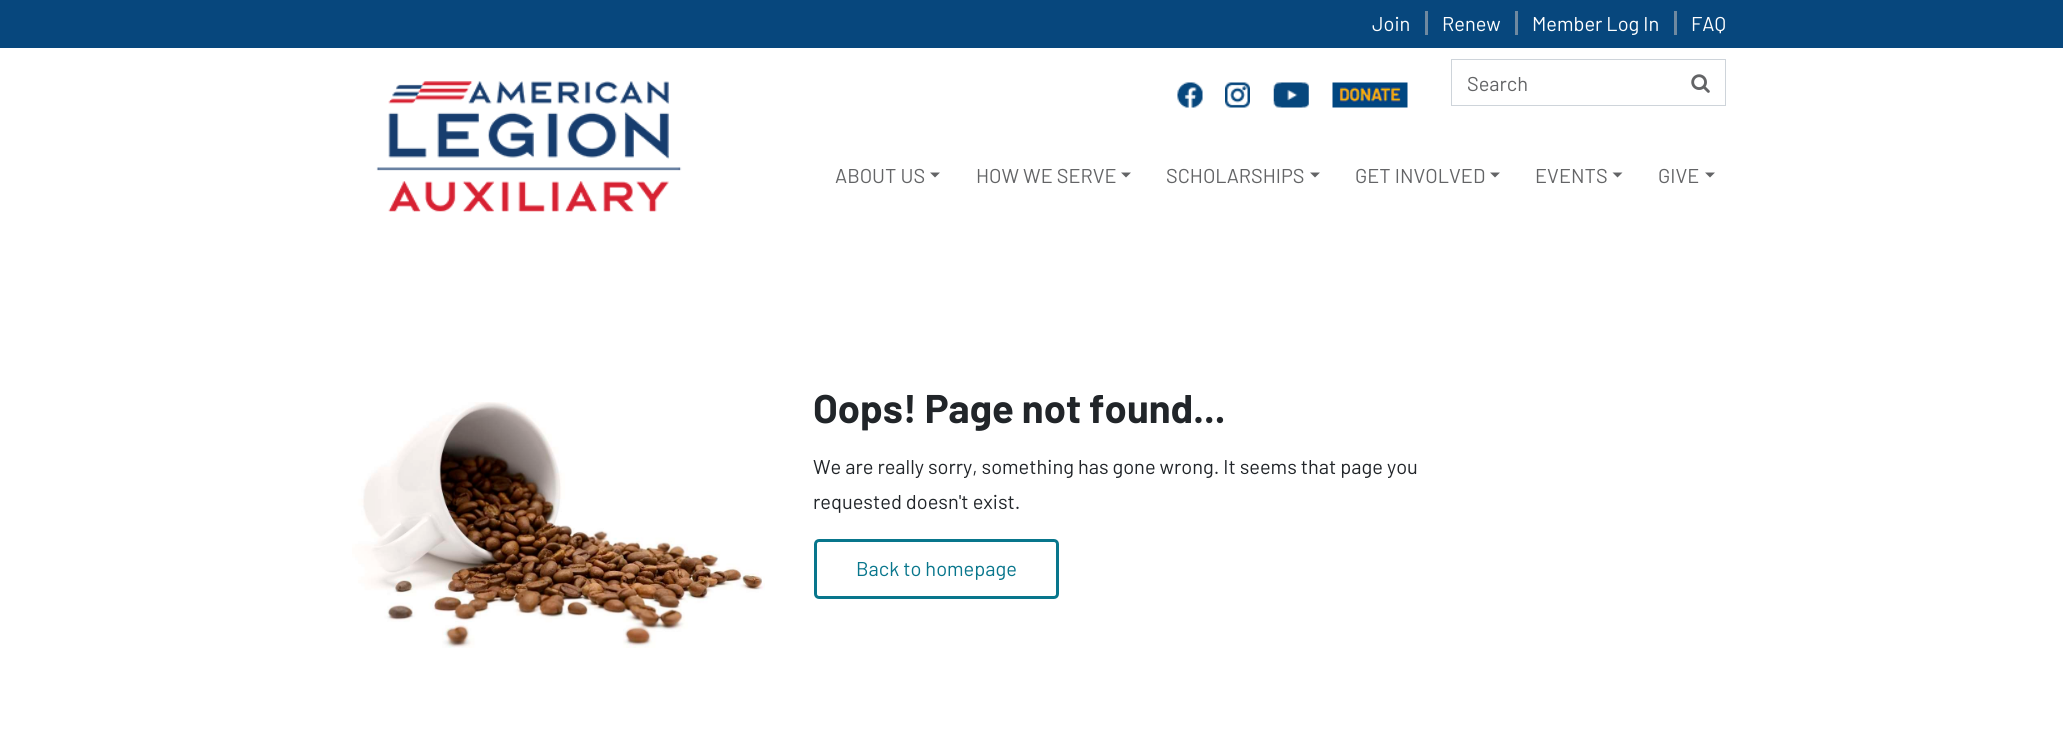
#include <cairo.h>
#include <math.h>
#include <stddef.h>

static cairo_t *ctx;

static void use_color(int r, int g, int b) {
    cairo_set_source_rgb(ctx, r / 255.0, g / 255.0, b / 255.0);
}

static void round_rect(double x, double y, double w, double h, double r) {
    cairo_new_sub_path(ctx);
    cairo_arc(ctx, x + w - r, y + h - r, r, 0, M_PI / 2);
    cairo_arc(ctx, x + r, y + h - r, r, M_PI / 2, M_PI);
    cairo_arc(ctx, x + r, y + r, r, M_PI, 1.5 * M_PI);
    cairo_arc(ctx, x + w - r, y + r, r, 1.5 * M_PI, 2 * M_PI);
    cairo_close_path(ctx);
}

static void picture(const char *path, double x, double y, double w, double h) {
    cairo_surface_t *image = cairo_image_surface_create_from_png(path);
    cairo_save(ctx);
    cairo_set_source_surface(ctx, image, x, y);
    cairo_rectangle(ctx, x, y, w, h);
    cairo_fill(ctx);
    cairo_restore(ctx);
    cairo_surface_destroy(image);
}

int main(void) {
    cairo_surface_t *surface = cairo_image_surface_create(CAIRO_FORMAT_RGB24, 2063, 736);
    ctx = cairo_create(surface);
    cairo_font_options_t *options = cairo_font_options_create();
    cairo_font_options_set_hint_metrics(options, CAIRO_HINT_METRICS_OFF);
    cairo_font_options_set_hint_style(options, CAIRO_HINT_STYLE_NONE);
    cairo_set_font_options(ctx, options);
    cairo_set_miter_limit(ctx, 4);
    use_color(255, 255, 255);
    cairo_paint(ctx);
    use_color(7, 71, 125);
    cairo_rectangle(ctx, 0, 0, 2063, 48);
    cairo_fill(ctx);
    cairo_select_font_face(ctx, "Barlow", CAIRO_FONT_SLANT_NORMAL, CAIRO_FONT_WEIGHT_NORMAL);
    cairo_set_font_size(ctx, 20);
    use_color(255, 255, 255);
    cairo_move_to(ctx, 1372, 31);
    cairo_show_text(ctx, "Join");
    use_color(111, 137, 160);
    cairo_rectangle(ctx, 1425, 11, 3, 24);
    cairo_fill(ctx);
    use_color(255, 255, 255);
    cairo_move_to(ctx, 1442, 31);
    cairo_show_text(ctx, "Renew");
    use_color(111, 137, 160);
    cairo_rectangle(ctx, 1515, 11, 3, 24);
    cairo_fill(ctx);
    use_color(255, 255, 255);
    cairo_move_to(ctx, 1532, 31);
    cairo_show_text(ctx, "Member Log In");
    use_color(111, 137, 160);
    cairo_rectangle(ctx, 1674, 11, 3, 24);
    cairo_fill(ctx);
    use_color(255, 255, 255);
    cairo_move_to(ctx, 1691, 31);
    cairo_show_text(ctx, "FAQ");
    picture("img1.png", 1177, 82, 26, 26);
    picture("img2.png", 1225, 82, 25, 26);
    picture("img3.png", 1273, 82, 36, 26);
    picture("img4.png", 1332, 82, 76, 26);
    cairo_rectangle(ctx, 1451.5, 59.5, 274, 46);
    use_color(206, 212, 218);
    cairo_set_line_width(ctx, 1);
    cairo_stroke(ctx);
    use_color(99, 100, 102);
    cairo_move_to(ctx, 1467, 91);
    cairo_show_text(ctx, "Search");
    picture("img5.png", 1691, 74, 19, 19);
    picture("img6.png", 376, 81, 306, 131);
    cairo_move_to(ctx, 835, 183);
    cairo_show_text(ctx, "ABOUT US");
    cairo_new_path(ctx);
    cairo_move_to(ctx, 930, 172.5);
    cairo_line_to(ctx, 940, 172.5);
    cairo_line_to(ctx, 935, 177.5);
    cairo_close_path(ctx);
    cairo_fill(ctx);
    cairo_move_to(ctx, 976, 183);
    cairo_show_text(ctx, "HOW WE SERVE");
    cairo_new_path(ctx);
    cairo_move_to(ctx, 1121, 172.5);
    cairo_line_to(ctx, 1131, 172.5);
    cairo_line_to(ctx, 1126, 177.5);
    cairo_close_path(ctx);
    cairo_fill(ctx);
    cairo_move_to(ctx, 1166, 183);
    cairo_show_text(ctx, "SCHOLARSHIPS");
    cairo_new_path(ctx);
    cairo_move_to(ctx, 1310, 172.5);
    cairo_line_to(ctx, 1320, 172.5);
    cairo_line_to(ctx, 1315, 177.5);
    cairo_close_path(ctx);
    cairo_fill(ctx);
    cairo_move_to(ctx, 1355, 183);
    cairo_show_text(ctx, "GET INVOLVED");
    cairo_new_path(ctx);
    cairo_move_to(ctx, 1490, 172.5);
    cairo_line_to(ctx, 1500, 172.5);
    cairo_line_to(ctx, 1495, 177.5);
    cairo_close_path(ctx);
    cairo_fill(ctx);
    cairo_move_to(ctx, 1535, 183);
    cairo_show_text(ctx, "EVENTS");
    cairo_new_path(ctx);
    cairo_move_to(ctx, 1612.5, 172.5);
    cairo_line_to(ctx, 1622.5, 172.5);
    cairo_line_to(ctx, 1617.5, 177.5);
    cairo_close_path(ctx);
    cairo_fill(ctx);
    cairo_move_to(ctx, 1658, 183);
    cairo_show_text(ctx, "GIVE");
    cairo_new_path(ctx);
    cairo_move_to(ctx, 1705, 172.5);
    cairo_line_to(ctx, 1715, 172.5);
    cairo_line_to(ctx, 1710, 177.5);
    cairo_close_path(ctx);
    cairo_fill(ctx);
    picture("img7.png", 352, 402, 413, 246);
    cairo_select_font_face(ctx, "Barlow", CAIRO_FONT_SLANT_NORMAL, CAIRO_FONT_WEIGHT_BOLD);
    cairo_set_font_size(ctx, 40);
    use_color(33, 37, 41);
    cairo_move_to(ctx, 813, 423);
    cairo_show_text(ctx, "Oops! Page not found...");
    cairo_select_font_face(ctx, "Barlow", CAIRO_FONT_SLANT_NORMAL, CAIRO_FONT_WEIGHT_NORMAL);
    cairo_set_font_size(ctx, 20);
    cairo_move_to(ctx, 813, 474);
    cairo_show_text(ctx, "We are really sorry, something has gone wrong. It seems that page you");
    cairo_move_to(ctx, 813, 509);
    cairo_show_text(ctx, "requested doesn't exist.");
    round_rect(815.5, 540.5, 242, 57, 3.5);
    use_color(8, 118, 140);
    cairo_set_line_width(ctx, 3);
    cairo_stroke(ctx);
    cairo_move_to(ctx, 856, 576);
    cairo_show_text(ctx, "Back to homepage");
    cairo_surface_write_to_png(surface, "result.png");
    cairo_font_options_destroy(options);
    cairo_destroy(ctx);
    cairo_surface_destroy(surface);
    return 0;
}
